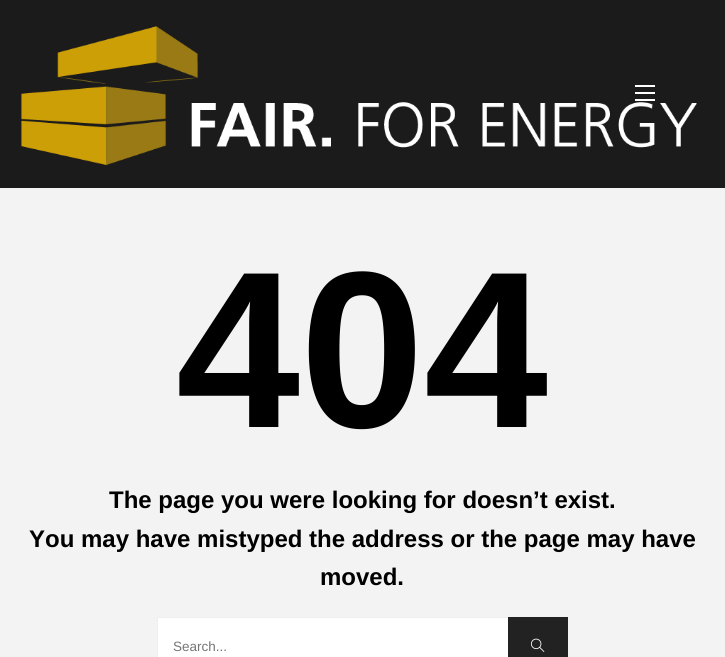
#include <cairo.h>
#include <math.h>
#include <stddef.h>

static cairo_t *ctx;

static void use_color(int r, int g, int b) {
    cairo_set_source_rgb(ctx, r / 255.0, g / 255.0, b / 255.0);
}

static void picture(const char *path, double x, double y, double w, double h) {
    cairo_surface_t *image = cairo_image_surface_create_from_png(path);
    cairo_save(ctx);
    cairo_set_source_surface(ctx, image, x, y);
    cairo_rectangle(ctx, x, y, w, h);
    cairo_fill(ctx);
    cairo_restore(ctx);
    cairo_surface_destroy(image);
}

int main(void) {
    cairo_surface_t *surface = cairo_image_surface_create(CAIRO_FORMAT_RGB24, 725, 657);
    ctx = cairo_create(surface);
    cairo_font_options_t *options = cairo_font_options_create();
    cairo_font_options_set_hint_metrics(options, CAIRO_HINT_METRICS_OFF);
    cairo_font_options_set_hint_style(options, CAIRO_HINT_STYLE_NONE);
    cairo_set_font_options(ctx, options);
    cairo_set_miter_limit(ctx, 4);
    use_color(243, 243, 243);
    cairo_paint(ctx);
    use_color(27, 27, 27);
    cairo_rectangle(ctx, 0, 0, 725, 188);
    cairo_fill(ctx);
    picture("img1.png", 21, 26, 676, 139);
    use_color(255, 255, 255);
    cairo_rectangle(ctx, 635, 92, 20, 2);
    cairo_fill(ctx);
    cairo_rectangle(ctx, 635, 85, 20, 2);
    cairo_fill(ctx);
    cairo_rectangle(ctx, 635, 99, 20, 2);
    cairo_fill(ctx);
    cairo_select_font_face(ctx, "Liberation Sans", CAIRO_FONT_SLANT_NORMAL, CAIRO_FONT_WEIGHT_BOLD);
    cairo_set_font_size(ctx, 223);
    use_color(0, 0, 0);
    cairo_move_to(ctx, 176, 427);
    cairo_show_text(ctx, "404");
    cairo_set_font_size(ctx, 24);
    cairo_move_to(ctx, 109, 508);
    cairo_show_text(ctx, "The page you were looking for doesn’t exist.");
    cairo_move_to(ctx, 29, 547);
    cairo_show_text(ctx, "You may have mistyped the address or the page may have");
    cairo_move_to(ctx, 320, 585);
    cairo_show_text(ctx, "moved.");
    use_color(255, 255, 255);
    cairo_rectangle(ctx, 158, 618, 350, 39);
    cairo_fill(ctx);
    cairo_rectangle(ctx, 157.5, 617.5, 410, 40);
    use_color(239, 239, 239);
    cairo_set_line_width(ctx, 1);
    cairo_stroke(ctx);
    cairo_select_font_face(ctx, "Liberation Sans", CAIRO_FONT_SLANT_NORMAL, CAIRO_FONT_WEIGHT_NORMAL);
    cairo_set_font_size(ctx, 13.5);
    use_color(117, 117, 117);
    cairo_move_to(ctx, 173, 651);
    cairo_show_text(ctx, "Search...");
    use_color(34, 34, 34);
    cairo_rectangle(ctx, 508, 617, 60, 40);
    cairo_fill(ctx);
    picture("img2.png", 531, 638, 14, 14);
    cairo_surface_write_to_png(surface, "result.png");
    cairo_font_options_destroy(options);
    cairo_destroy(ctx);
    cairo_surface_destroy(surface);
    return 0;
}
